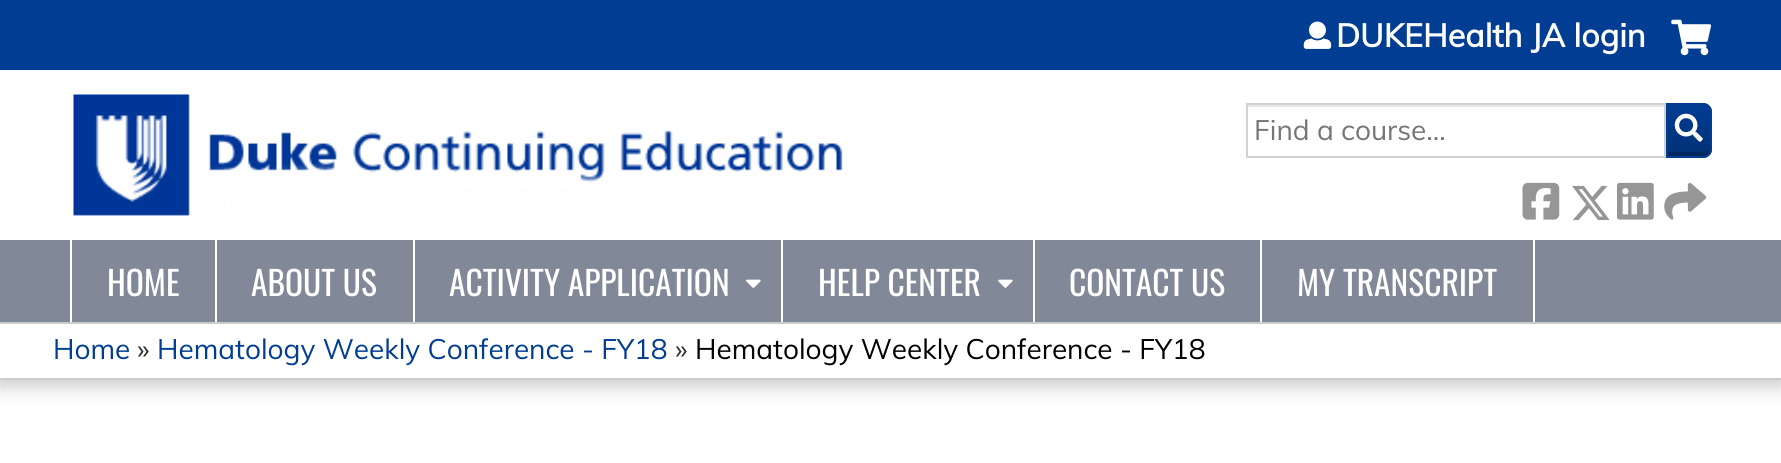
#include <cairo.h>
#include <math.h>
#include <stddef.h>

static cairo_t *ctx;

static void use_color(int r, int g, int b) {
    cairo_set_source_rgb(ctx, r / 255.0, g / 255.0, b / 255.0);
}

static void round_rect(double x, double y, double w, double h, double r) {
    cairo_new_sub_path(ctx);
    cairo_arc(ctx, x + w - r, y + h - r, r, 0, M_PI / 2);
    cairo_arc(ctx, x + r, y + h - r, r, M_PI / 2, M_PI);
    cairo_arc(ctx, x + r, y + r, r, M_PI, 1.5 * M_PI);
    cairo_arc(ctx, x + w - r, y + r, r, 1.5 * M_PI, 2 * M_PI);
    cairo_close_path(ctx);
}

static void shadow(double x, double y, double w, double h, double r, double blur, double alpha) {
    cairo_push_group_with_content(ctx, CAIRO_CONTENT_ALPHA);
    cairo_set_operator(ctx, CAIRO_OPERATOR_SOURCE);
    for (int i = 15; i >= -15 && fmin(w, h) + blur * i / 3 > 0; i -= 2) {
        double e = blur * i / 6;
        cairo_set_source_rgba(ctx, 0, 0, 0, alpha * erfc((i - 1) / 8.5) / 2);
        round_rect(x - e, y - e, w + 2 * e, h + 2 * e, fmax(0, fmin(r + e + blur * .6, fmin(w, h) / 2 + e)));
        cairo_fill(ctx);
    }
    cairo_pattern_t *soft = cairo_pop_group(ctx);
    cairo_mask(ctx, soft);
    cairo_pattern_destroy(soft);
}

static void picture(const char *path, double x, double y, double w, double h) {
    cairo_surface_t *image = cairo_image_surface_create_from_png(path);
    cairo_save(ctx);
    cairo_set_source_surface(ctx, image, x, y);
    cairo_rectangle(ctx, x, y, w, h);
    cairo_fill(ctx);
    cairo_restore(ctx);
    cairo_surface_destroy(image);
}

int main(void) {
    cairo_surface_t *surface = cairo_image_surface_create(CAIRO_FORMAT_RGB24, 1781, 463);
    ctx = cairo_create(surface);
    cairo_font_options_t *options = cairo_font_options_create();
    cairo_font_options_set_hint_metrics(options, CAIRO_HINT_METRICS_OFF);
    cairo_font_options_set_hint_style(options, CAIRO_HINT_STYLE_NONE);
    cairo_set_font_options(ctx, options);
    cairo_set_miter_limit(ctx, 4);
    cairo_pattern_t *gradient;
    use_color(255, 255, 255);
    cairo_paint(ctx);
    use_color(0, 61, 147);
    cairo_rectangle(ctx, 0, 0, 1781, 70);
    cairo_fill(ctx);
    picture("img1.png", 1303, 21, 29, 28);
    cairo_select_font_face(ctx, "Muli", CAIRO_FONT_SLANT_NORMAL, CAIRO_FONT_WEIGHT_BOLD);
    cairo_set_font_size(ctx, 32.25);
    use_color(255, 255, 255);
    cairo_move_to(ctx, 1336, 47);
    cairo_show_text(ctx, "DUKEHealth JA login");
    picture("img2.png", 1671, 19, 41, 37);
    use_color(0, 61, 147);
    cairo_new_path(ctx);
    cairo_move_to(ctx, 1666, 103);
    cairo_line_to(ctx, 1703, 103);
    cairo_curve_to(ctx, 1708, 103, 1712, 107, 1712, 112);
    cairo_line_to(ctx, 1712, 149);
    cairo_curve_to(ctx, 1712, 154, 1708, 158, 1703, 158);
    cairo_line_to(ctx, 1666, 158);
    cairo_close_path(ctx);
    cairo_fill(ctx);
    cairo_save(ctx);
    cairo_new_path(ctx);
    cairo_move_to(ctx, 1666, 103);
    cairo_line_to(ctx, 1703, 103);
    cairo_curve_to(ctx, 1708, 103, 1712, 107, 1712, 112);
    cairo_line_to(ctx, 1712, 149);
    cairo_curve_to(ctx, 1712, 154, 1708, 158, 1703, 158);
    cairo_line_to(ctx, 1666, 158);
    cairo_close_path(ctx);
    cairo_clip(ctx);
    gradient = cairo_pattern_create_linear(1689, 156, 1689, 105);
    cairo_pattern_add_color_stop_rgba(gradient, 0, 0, 0, 0, 0.2);
    cairo_pattern_add_color_stop_rgba(gradient, 1, 0, 0, 0, 0);
    cairo_set_source(ctx, gradient);
    cairo_pattern_destroy(gradient);
    cairo_rectangle(ctx, 1668, 110, 44, 46);
    cairo_fill(ctx);
    cairo_restore(ctx);
    cairo_set_source_rgba(ctx, 0, 0, 0, 0.2);
    cairo_new_path(ctx);
    cairo_move_to(ctx, 1668, 152);
    cairo_line_to(ctx, 1668, 156);
    cairo_line_to(ctx, 1691, 156);
    cairo_curve_to(ctx, 1697, 156, 1710, 159, 1710, 149);
    cairo_curve_to(ctx, 1708, 151, 1706, 152, 1703, 152);
    cairo_close_path(ctx);
    cairo_fill(ctx);
    cairo_new_path(ctx);
    cairo_move_to(ctx, 1667, 104);
    cairo_line_to(ctx, 1703, 104);
    cairo_curve_to(ctx, 1707.5, 104, 1711, 107.5, 1711, 112);
    cairo_line_to(ctx, 1711, 149);
    cairo_curve_to(ctx, 1711, 153.5, 1707.5, 157, 1703, 157);
    cairo_line_to(ctx, 1667, 157);
    cairo_close_path(ctx);
    use_color(0, 61, 147);
    cairo_stroke(ctx);
    use_color(230, 230, 230);
    cairo_rectangle(ctx, 1248, 105, 416, 2);
    cairo_fill(ctx);
    cairo_rectangle(ctx, 1247, 104, 418, 53);
    use_color(209, 209, 209);
    cairo_stroke(ctx);
    cairo_select_font_face(ctx, "Muli", CAIRO_FONT_SLANT_NORMAL, CAIRO_FONT_WEIGHT_NORMAL);
    cairo_set_font_size(ctx, 28);
    use_color(117, 117, 117);
    cairo_move_to(ctx, 1254, 140);
    cairo_show_text(ctx, "Find a course...");
    picture("img3.png", 1674, 113, 29, 29);
    picture("img4.png", 1522, 182, 38, 38);
    picture("img5.png", 1572, 185, 38, 36);
    picture("img6.png", 1617, 182, 37, 38);
    picture("img7.png", 1664, 182, 43, 38);
    picture("img8.png", 73, 94, 770, 122);
    use_color(0, 0, 0);
    shadow(-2, 326, 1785, 61, 0, 9, 0.2);
    use_color(129, 136, 152);
    cairo_rectangle(ctx, 0, 240, 1781, 82);
    cairo_fill(ctx);
    use_color(255, 255, 255);
    cairo_rectangle(ctx, 215, 240, 2, 82);
    cairo_fill(ctx);
    cairo_rectangle(ctx, 70, 240, 2, 82);
    cairo_fill(ctx);
    cairo_select_font_face(ctx, "Oswald", CAIRO_FONT_SLANT_NORMAL, CAIRO_FONT_WEIGHT_NORMAL);
    cairo_set_font_size(ctx, 33.5);
    cairo_move_to(ctx, 107, 296);
    cairo_show_text(ctx, "HOME");
    cairo_rectangle(ctx, 413, 240, 2, 82);
    cairo_fill(ctx);
    cairo_move_to(ctx, 251, 296);
    cairo_show_text(ctx, "ABOUT US");
    cairo_rectangle(ctx, 781, 240, 2, 82);
    cairo_fill(ctx);
    cairo_move_to(ctx, 449, 296);
    cairo_show_text(ctx, "ACTIVITY APPLICATION");
    picture("img9.png", 746, 279, 15, 9);
    cairo_rectangle(ctx, 1033, 240, 2, 82);
    cairo_fill(ctx);
    cairo_move_to(ctx, 818, 296);
    cairo_show_text(ctx, "HELP CENTER");
    picture("img9.png", 998, 279, 15, 9);
    cairo_rectangle(ctx, 1260, 240, 2, 82);
    cairo_fill(ctx);
    cairo_move_to(ctx, 1069, 296);
    cairo_show_text(ctx, "CONTACT US");
    cairo_rectangle(ctx, 1533, 240, 2, 82);
    cairo_fill(ctx);
    cairo_move_to(ctx, 1297, 296);
    cairo_show_text(ctx, "MY TRANSCRIPT");
    cairo_rectangle(ctx, 0, 324, 1781, 54);
    cairo_fill(ctx);
    use_color(204, 204, 204);
    cairo_rectangle(ctx, 0, 322, 1781, 2);
    cairo_fill(ctx);
    cairo_rectangle(ctx, 0, 378, 1781, 2);
    cairo_fill(ctx);
    cairo_select_font_face(ctx, "Muli", CAIRO_FONT_SLANT_NORMAL, CAIRO_FONT_WEIGHT_NORMAL);
    cairo_set_font_size(ctx, 28);
    use_color(0, 61, 147);
    cairo_move_to(ctx, 53, 359);
    cairo_show_text(ctx, "Home");
    use_color(47, 47, 47);
    cairo_move_to(ctx, 137, 359);
    cairo_show_text(ctx, "»");
    use_color(0, 61, 147);
    cairo_move_to(ctx, 157, 359);
    cairo_show_text(ctx, "Hematology Weekly Conference - FY18");
    use_color(47, 47, 47);
    cairo_move_to(ctx, 675, 359);
    cairo_show_text(ctx, "»");
    use_color(0, 0, 0);
    cairo_move_to(ctx, 695, 359);
    cairo_show_text(ctx, "Hematology Weekly Conference - FY18");
    cairo_surface_write_to_png(surface, "result.png");
    cairo_font_options_destroy(options);
    cairo_destroy(ctx);
    cairo_surface_destroy(surface);
    return 0;
}
